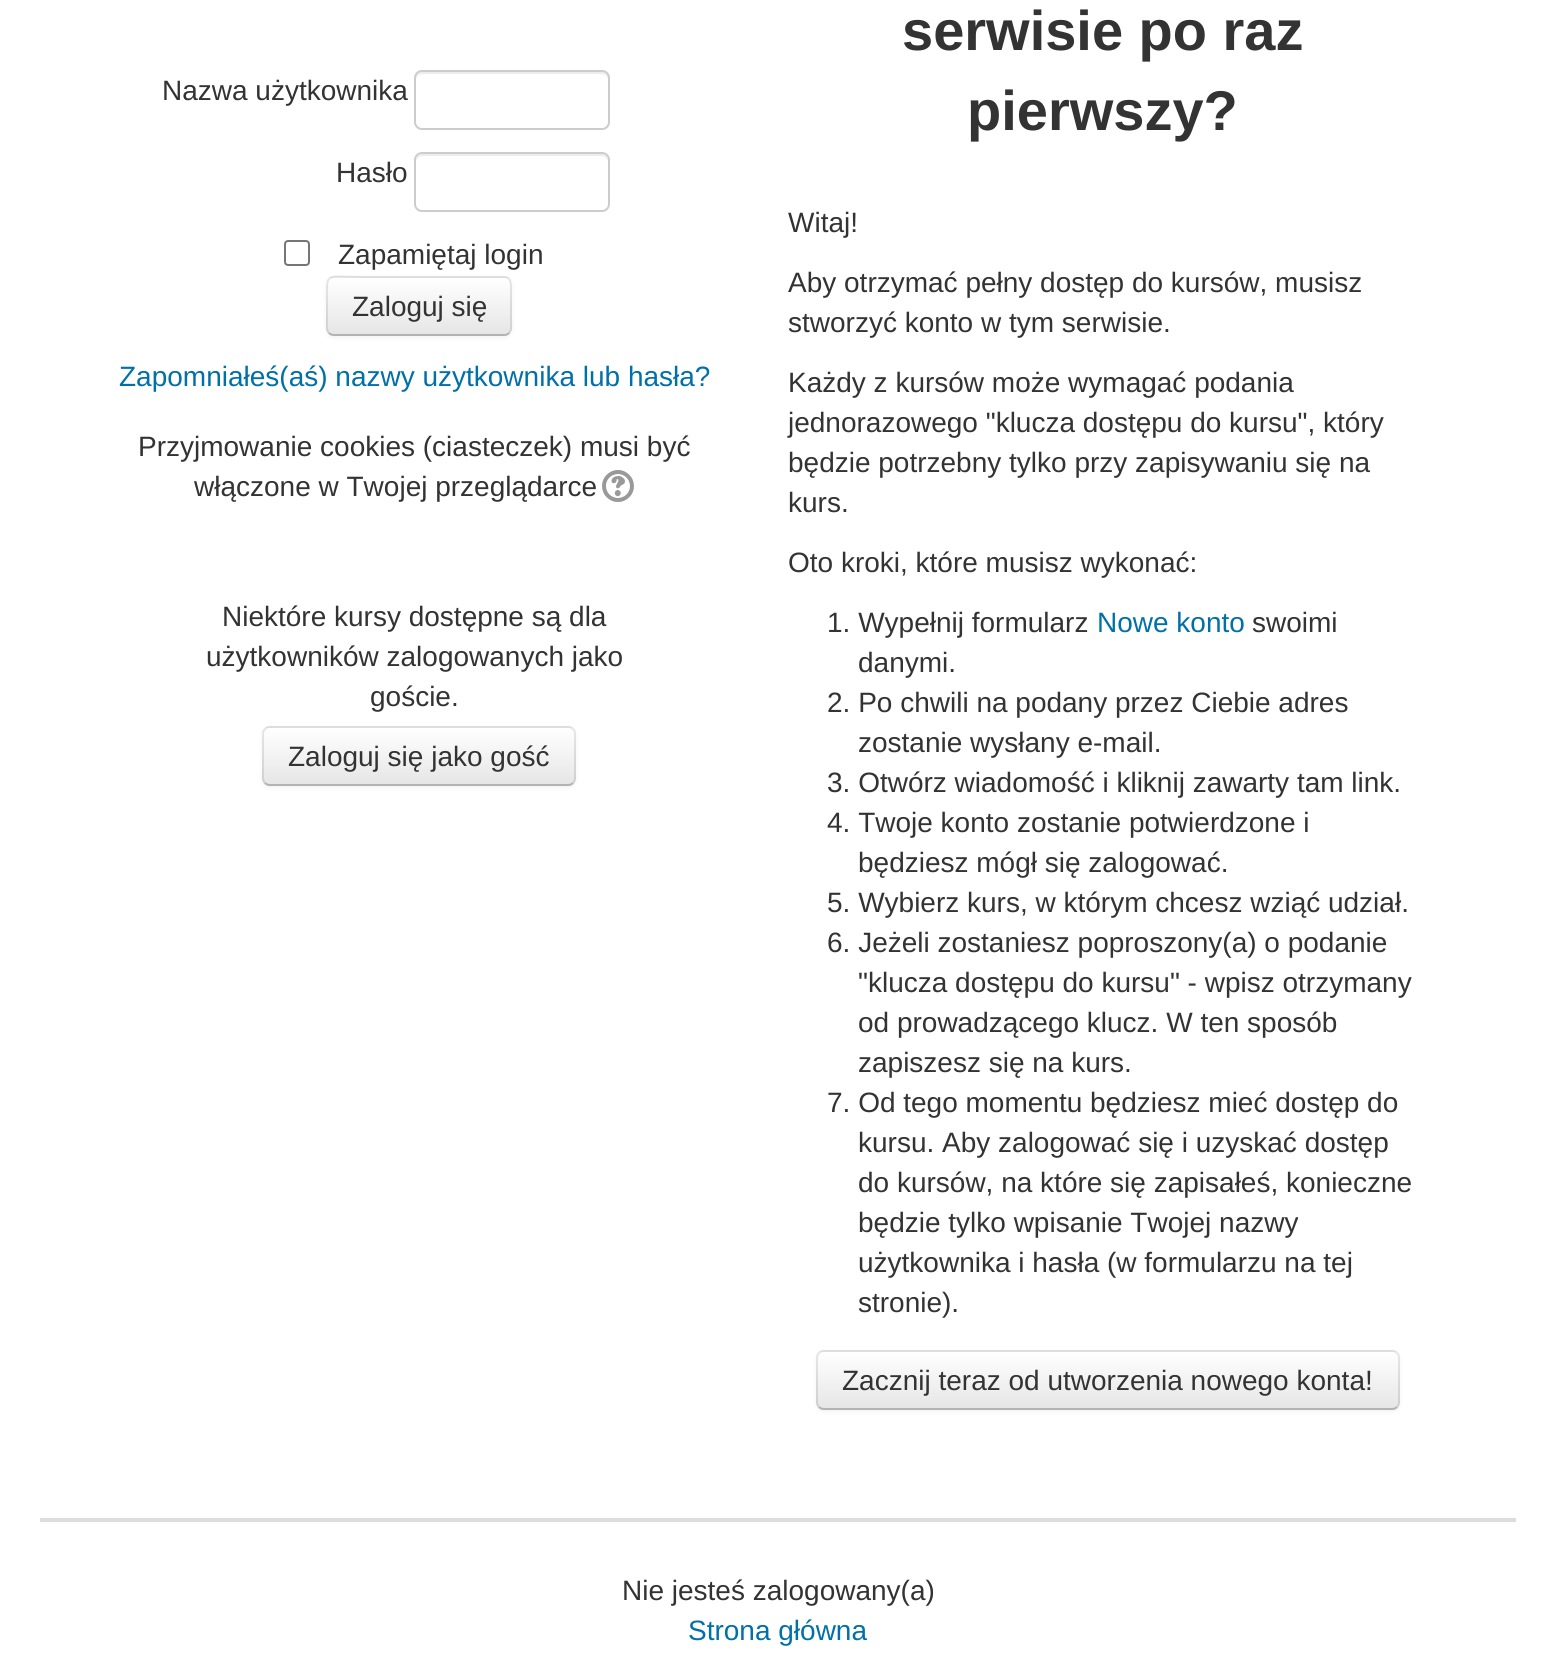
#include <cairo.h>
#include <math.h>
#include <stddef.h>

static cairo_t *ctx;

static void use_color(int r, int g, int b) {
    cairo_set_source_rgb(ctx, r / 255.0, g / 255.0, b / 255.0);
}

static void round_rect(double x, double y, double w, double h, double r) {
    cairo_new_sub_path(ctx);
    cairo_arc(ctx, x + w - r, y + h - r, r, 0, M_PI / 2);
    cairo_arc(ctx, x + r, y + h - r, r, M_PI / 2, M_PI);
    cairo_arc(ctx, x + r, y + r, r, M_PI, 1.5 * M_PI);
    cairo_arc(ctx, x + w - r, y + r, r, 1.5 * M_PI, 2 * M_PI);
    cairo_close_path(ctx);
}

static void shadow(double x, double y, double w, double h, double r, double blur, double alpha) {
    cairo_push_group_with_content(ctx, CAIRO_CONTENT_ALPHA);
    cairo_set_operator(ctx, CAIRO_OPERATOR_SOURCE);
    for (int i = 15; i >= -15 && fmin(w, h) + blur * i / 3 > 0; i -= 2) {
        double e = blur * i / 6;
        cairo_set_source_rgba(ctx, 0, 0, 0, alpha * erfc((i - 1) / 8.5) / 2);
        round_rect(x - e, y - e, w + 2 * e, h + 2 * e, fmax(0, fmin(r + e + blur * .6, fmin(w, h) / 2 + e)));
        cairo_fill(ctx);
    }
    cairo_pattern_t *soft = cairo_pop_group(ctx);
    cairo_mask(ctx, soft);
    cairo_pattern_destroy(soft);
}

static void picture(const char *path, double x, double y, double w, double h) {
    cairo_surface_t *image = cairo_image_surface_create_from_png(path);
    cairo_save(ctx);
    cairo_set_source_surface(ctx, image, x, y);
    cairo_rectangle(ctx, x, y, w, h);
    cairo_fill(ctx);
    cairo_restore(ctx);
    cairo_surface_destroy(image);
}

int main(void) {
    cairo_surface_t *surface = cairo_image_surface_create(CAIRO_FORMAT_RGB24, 1556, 1677);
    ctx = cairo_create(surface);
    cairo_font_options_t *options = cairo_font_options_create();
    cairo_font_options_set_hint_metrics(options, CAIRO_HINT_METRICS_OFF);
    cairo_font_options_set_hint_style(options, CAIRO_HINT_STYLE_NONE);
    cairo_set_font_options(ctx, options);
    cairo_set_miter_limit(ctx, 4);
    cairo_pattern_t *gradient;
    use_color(255, 255, 255);
    cairo_paint(ctx);
    cairo_select_font_face(ctx, "Liberation Sans", CAIRO_FONT_SLANT_NORMAL, CAIRO_FONT_WEIGHT_NORMAL);
    cairo_set_font_size(ctx, 28);
    use_color(51, 51, 51);
    cairo_move_to(ctx, 162, 100);
    cairo_show_text(ctx, "Nazwa użytkownika");
    use_color(236, 236, 236);
    cairo_new_path(ctx);
    cairo_move_to(ctx, 422, 74);
    cairo_line_to(ctx, 602, 74);
    cairo_curve_to(ctx, 605, 74, 608, 77, 608, 80);
    cairo_line_to(ctx, 608, 78);
    cairo_curve_to(ctx, 608, 75, 605, 72, 602, 72);
    cairo_line_to(ctx, 422, 72);
    cairo_curve_to(ctx, 419, 72, 416, 75, 416, 78);
    cairo_line_to(ctx, 416, 80);
    cairo_curve_to(ctx, 416, 77, 419, 74, 422, 74);
    cairo_close_path(ctx);
    cairo_fill(ctx);
    round_rect(415, 71, 194, 58, 7);
    use_color(204, 204, 204);
    cairo_stroke(ctx);
    use_color(51, 51, 51);
    cairo_move_to(ctx, 336, 182);
    cairo_show_text(ctx, "Hasło");
    use_color(236, 236, 236);
    cairo_new_path(ctx);
    cairo_move_to(ctx, 422, 156);
    cairo_line_to(ctx, 602, 156);
    cairo_curve_to(ctx, 605, 156, 608, 159, 608, 162);
    cairo_line_to(ctx, 608, 160);
    cairo_curve_to(ctx, 608, 157, 605, 154, 602, 154);
    cairo_line_to(ctx, 422, 154);
    cairo_curve_to(ctx, 419, 154, 416, 157, 416, 160);
    cairo_line_to(ctx, 416, 162);
    cairo_curve_to(ctx, 416, 159, 419, 156, 422, 156);
    cairo_close_path(ctx);
    cairo_fill(ctx);
    round_rect(415, 153, 194, 58, 7);
    use_color(204, 204, 204);
    cairo_stroke(ctx);
    round_rect(285, 241, 24, 24, 3);
    use_color(118, 118, 118);
    cairo_stroke(ctx);
    use_color(51, 51, 51);
    cairo_move_to(ctx, 338, 264);
    cairo_show_text(ctx, "Zapamiętaj login");
    use_color(0, 0, 0);
    shadow(326, 278, 186, 60, 8, 2, 0.05);
    use_color(245, 245, 245);
    round_rect(326, 276, 186, 60, 8);
    cairo_fill(ctx);
    cairo_save(ctx);
    round_rect(326, 276, 186, 60, 8);
    cairo_clip(ctx);
    gradient = cairo_pattern_create_linear(419, 278, 419, 334);
    cairo_pattern_add_color_stop_rgba(gradient, 0, 1, 1, 1, 1);
    cairo_pattern_add_color_stop_rgba(gradient, 1, 0.902, 0.902, 0.902, 1);
    cairo_set_source(ctx, gradient);
    cairo_pattern_destroy(gradient);
    cairo_rectangle(ctx, 326, 278, 186, 56);
    cairo_fill(ctx);
    cairo_restore(ctx);
    cairo_new_path(ctx);
    cairo_move_to(ctx, 509, 333);
    cairo_curve_to(ctx, 507.5, 334.5, 506, 335, 504, 335);
    cairo_line_to(ctx, 334, 335);
    cairo_curve_to(ctx, 332, 335, 330.5, 334.5, 329, 333);
    use_color(179, 179, 179);
    cairo_stroke(ctx);
    cairo_new_path(ctx);
    cairo_move_to(ctx, 329, 333);
    cairo_curve_to(ctx, 326, 330, 327, 324.5, 327, 320.5);
    cairo_line_to(ctx, 327, 306);
    cairo_curve_to(ctx, 327, 270.5, 323, 277, 362.5, 277);
    cairo_line_to(ctx, 504, 277);
    cairo_curve_to(ctx, 512, 277, 511, 286, 511, 291.5);
    cairo_line_to(ctx, 511, 320.5);
    cairo_curve_to(ctx, 511, 324.5, 512, 330, 509, 333);
    cairo_set_source_rgba(ctx, 0, 0, 0, 0.1);
    cairo_stroke(ctx);
    use_color(51, 51, 51);
    cairo_move_to(ctx, 352, 316);
    cairo_show_text(ctx, "Zaloguj się");
    use_color(0, 112, 168);
    cairo_move_to(ctx, 119, 386);
    cairo_show_text(ctx, "Zapomniałeś(aś) nazwy użytkownika lub hasła?");
    use_color(51, 51, 51);
    cairo_move_to(ctx, 138, 456);
    cairo_show_text(ctx, "Przyjmowanie cookies (ciasteczek) musi być");
    cairo_move_to(ctx, 194, 496);
    cairo_show_text(ctx, "włączone w Twojej przeglądarce");
    picture("img1.png", 602, 470, 32, 32);
    cairo_move_to(ctx, 222, 626);
    cairo_show_text(ctx, "Niektóre kursy dostępne są dla");
    cairo_move_to(ctx, 206, 666);
    cairo_show_text(ctx, "użytkowników zalogowanych jako");
    cairo_move_to(ctx, 370, 706);
    cairo_show_text(ctx, "goście.");
    use_color(0, 0, 0);
    shadow(262, 728, 314, 60, 8, 2, 0.05);
    use_color(245, 245, 245);
    round_rect(262, 726, 314, 60, 8);
    cairo_fill(ctx);
    cairo_save(ctx);
    round_rect(262, 726, 314, 60, 8);
    cairo_clip(ctx);
    gradient = cairo_pattern_create_linear(419, 728, 419, 784);
    cairo_pattern_add_color_stop_rgba(gradient, 0, 1, 1, 1, 1);
    cairo_pattern_add_color_stop_rgba(gradient, 1, 0.902, 0.902, 0.902, 1);
    cairo_set_source(ctx, gradient);
    cairo_pattern_destroy(gradient);
    cairo_rectangle(ctx, 262, 728, 314, 56);
    cairo_fill(ctx);
    cairo_restore(ctx);
    cairo_new_path(ctx);
    cairo_move_to(ctx, 573, 783);
    cairo_curve_to(ctx, 571.5, 784.5, 570, 785, 568, 785);
    cairo_line_to(ctx, 270, 785);
    cairo_curve_to(ctx, 268, 785, 266.5, 784.5, 265, 783);
    use_color(179, 179, 179);
    cairo_stroke(ctx);
    cairo_new_path(ctx);
    cairo_move_to(ctx, 265, 783);
    cairo_curve_to(ctx, 263.5, 781.5, 263, 780, 263, 778);
    cairo_line_to(ctx, 263, 734);
    cairo_curve_to(ctx, 263, 732, 263.5, 730.5, 265, 729);
    cairo_curve_to(ctx, 266.5, 727.5, 268, 727, 270, 727);
    cairo_line_to(ctx, 568, 727);
    cairo_curve_to(ctx, 570, 727, 571.5, 727.5, 573, 729);
    cairo_curve_to(ctx, 574.5, 730.5, 575, 732, 575, 734);
    cairo_line_to(ctx, 575, 778);
    cairo_curve_to(ctx, 575, 780, 574.5, 781.5, 573, 783);
    cairo_set_source_rgba(ctx, 0, 0, 0, 0.1);
    cairo_stroke(ctx);
    use_color(51, 51, 51);
    cairo_move_to(ctx, 288, 766);
    cairo_show_text(ctx, "Zaloguj się jako gość");
    cairo_select_font_face(ctx, "Liberation Sans", CAIRO_FONT_SLANT_NORMAL, CAIRO_FONT_WEIGHT_BOLD);
    cairo_set_font_size(ctx, 56);
    cairo_move_to(ctx, 902, 50);
    cairo_show_text(ctx, "serwisie po raz");
    cairo_move_to(ctx, 967, 130);
    cairo_show_text(ctx, "pierwszy?");
    cairo_select_font_face(ctx, "Liberation Sans", CAIRO_FONT_SLANT_NORMAL, CAIRO_FONT_WEIGHT_NORMAL);
    cairo_set_font_size(ctx, 28);
    cairo_move_to(ctx, 788, 232);
    cairo_show_text(ctx, "Witaj!");
    cairo_move_to(ctx, 788, 292);
    cairo_show_text(ctx, "Aby otrzymać pełny dostęp do kursów, musisz");
    cairo_move_to(ctx, 788, 332);
    cairo_show_text(ctx, "stworzyć konto w tym serwisie.");
    cairo_move_to(ctx, 788, 392);
    cairo_show_text(ctx, "Każdy z kursów może wymagać podania");
    cairo_move_to(ctx, 788, 432);
    cairo_show_text(ctx, "jednorazowego \"klucza dostępu do kursu\", który");
    cairo_move_to(ctx, 788, 472);
    cairo_show_text(ctx, "będzie potrzebny tylko przy zapisywaniu się na");
    cairo_move_to(ctx, 788, 512);
    cairo_show_text(ctx, "kurs.");
    cairo_move_to(ctx, 788, 572);
    cairo_show_text(ctx, "Oto kroki, które musisz wykonać:");
    cairo_move_to(ctx, 827, 632);
    cairo_show_text(ctx, "1. Wypełnij formularz");
    use_color(0, 112, 168);
    cairo_move_to(ctx, 1097, 632);
    cairo_show_text(ctx, "Nowe konto");
    use_color(51, 51, 51);
    cairo_move_to(ctx, 1252, 632);
    cairo_show_text(ctx, "swoimi");
    cairo_move_to(ctx, 858, 672);
    cairo_show_text(ctx, "danymi.");
    cairo_move_to(ctx, 827, 712);
    cairo_show_text(ctx, "2. Po chwili na podany przez Ciebie adres");
    cairo_move_to(ctx, 858, 752);
    cairo_show_text(ctx, "zostanie wysłany e-mail.");
    cairo_move_to(ctx, 827, 792);
    cairo_show_text(ctx, "3. Otwórz wiadomość i kliknij zawarty tam link.");
    cairo_move_to(ctx, 827, 832);
    cairo_show_text(ctx, "4. Twoje konto zostanie potwierdzone i");
    cairo_move_to(ctx, 858, 872);
    cairo_show_text(ctx, "będziesz mógł się zalogować.");
    cairo_move_to(ctx, 827, 912);
    cairo_show_text(ctx, "5. Wybierz kurs, w którym chcesz wziąć udział.");
    cairo_move_to(ctx, 827, 952);
    cairo_show_text(ctx, "6. Jeżeli zostaniesz poproszony(a) o podanie");
    cairo_move_to(ctx, 858, 992);
    cairo_show_text(ctx, "\"klucza dostępu do kursu\" - wpisz otrzymany");
    cairo_move_to(ctx, 858, 1032);
    cairo_show_text(ctx, "od prowadzącego klucz. W ten sposób");
    cairo_move_to(ctx, 858, 1072);
    cairo_show_text(ctx, "zapiszesz się na kurs.");
    cairo_move_to(ctx, 827, 1112);
    cairo_show_text(ctx, "7. Od tego momentu będziesz mieć dostęp do");
    cairo_move_to(ctx, 858, 1152);
    cairo_show_text(ctx, "kursu. Aby zalogować się i uzyskać dostęp");
    cairo_move_to(ctx, 858, 1192);
    cairo_show_text(ctx, "do kursów, na które się zapisałeś, konieczne");
    cairo_move_to(ctx, 858, 1232);
    cairo_show_text(ctx, "będzie tylko wpisanie Twojej nazwy");
    cairo_move_to(ctx, 858, 1272);
    cairo_show_text(ctx, "użytkownika i hasła (w formularzu na tej");
    cairo_move_to(ctx, 858, 1312);
    cairo_show_text(ctx, "stronie).");
    use_color(0, 0, 0);
    shadow(816, 1352, 584, 60, 8, 2, 0.05);
    use_color(245, 245, 245);
    round_rect(816, 1350, 584, 60, 8);
    cairo_fill(ctx);
    cairo_save(ctx);
    round_rect(816, 1350, 584, 60, 8);
    cairo_clip(ctx);
    gradient = cairo_pattern_create_linear(1108, 1352, 1108, 1408);
    cairo_pattern_add_color_stop_rgba(gradient, 0, 1, 1, 1, 1);
    cairo_pattern_add_color_stop_rgba(gradient, 1, 0.902, 0.902, 0.902, 1);
    cairo_set_source(ctx, gradient);
    cairo_pattern_destroy(gradient);
    cairo_rectangle(ctx, 816, 1352, 584, 56);
    cairo_fill(ctx);
    cairo_restore(ctx);
    cairo_new_path(ctx);
    cairo_move_to(ctx, 1397, 1407);
    cairo_curve_to(ctx, 1395.5, 1408.5, 1394, 1409, 1392, 1409);
    cairo_line_to(ctx, 824, 1409);
    cairo_curve_to(ctx, 822, 1409, 820.5, 1408.5, 819, 1407);
    use_color(179, 179, 179);
    cairo_stroke(ctx);
    cairo_new_path(ctx);
    cairo_move_to(ctx, 819, 1407);
    cairo_curve_to(ctx, 817.5, 1405.5, 817, 1404, 817, 1402);
    cairo_line_to(ctx, 817, 1358);
    cairo_curve_to(ctx, 817, 1356, 817.5, 1354.5, 819, 1353);
    cairo_curve_to(ctx, 820.5, 1351.5, 822, 1351, 824, 1351);
    cairo_line_to(ctx, 1392, 1351);
    cairo_curve_to(ctx, 1394, 1351, 1395.5, 1351.5, 1397, 1353);
    cairo_curve_to(ctx, 1398.5, 1354.5, 1399, 1356, 1399, 1358);
    cairo_line_to(ctx, 1399, 1402);
    cairo_curve_to(ctx, 1399, 1404, 1398.5, 1405.5, 1397, 1407);
    cairo_set_source_rgba(ctx, 0, 0, 0, 0.1);
    cairo_stroke(ctx);
    use_color(51, 51, 51);
    cairo_move_to(ctx, 842, 1390);
    cairo_show_text(ctx, "Zacznij teraz od utworzenia nowego konta!");
    use_color(221, 221, 221);
    cairo_rectangle(ctx, 40, 1518, 1476, 4);
    cairo_fill(ctx);
    use_color(51, 51, 51);
    cairo_move_to(ctx, 622, 1600);
    cairo_show_text(ctx, "Nie jesteś zalogowany(a)");
    use_color(0, 112, 168);
    cairo_move_to(ctx, 688, 1640);
    cairo_show_text(ctx, "Strona główna");
    cairo_surface_write_to_png(surface, "result.png");
    cairo_font_options_destroy(options);
    cairo_destroy(ctx);
    cairo_surface_destroy(surface);
    return 0;
}
